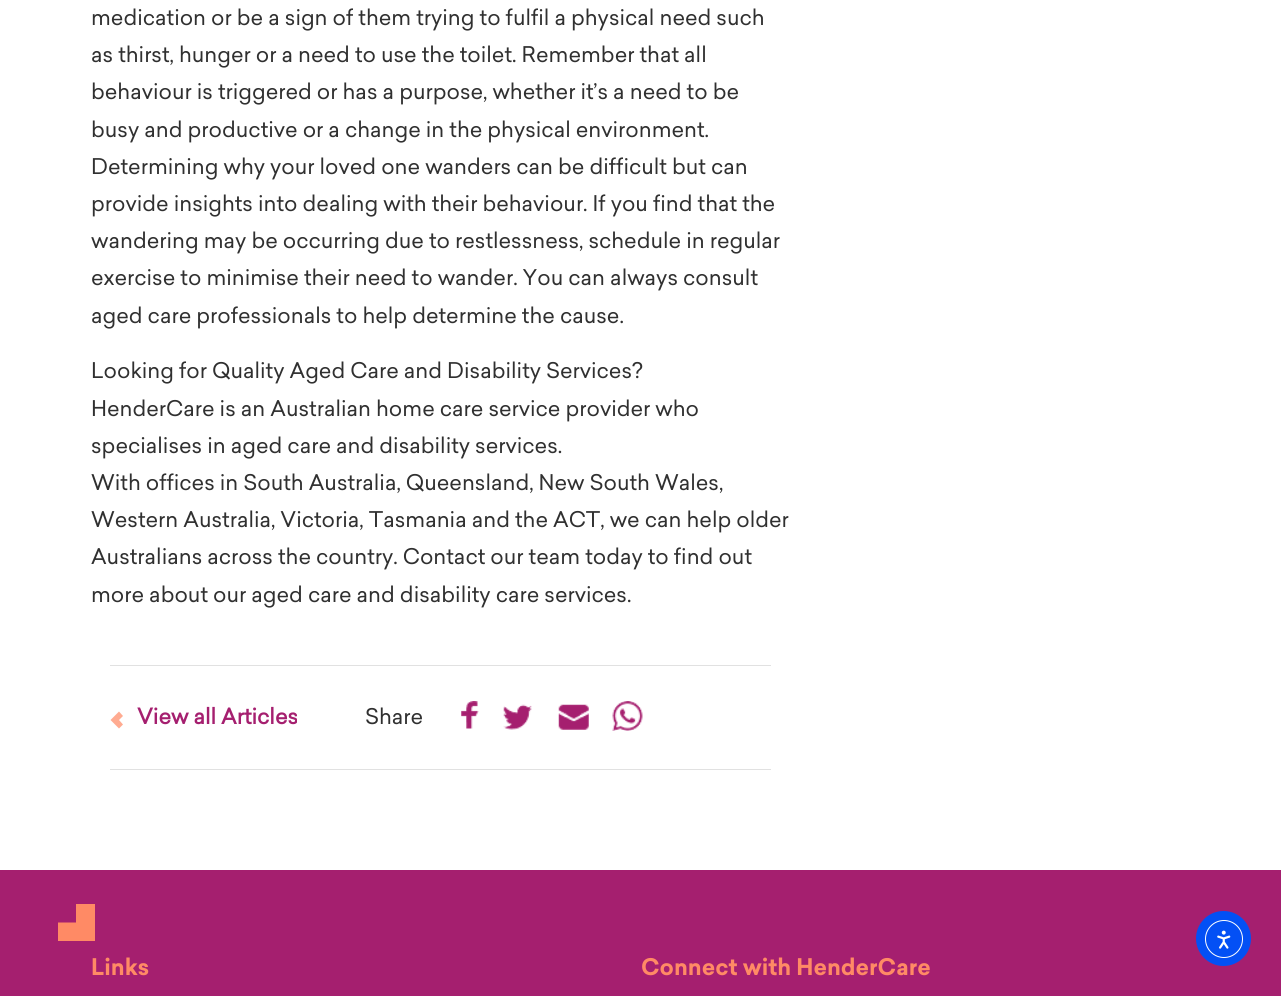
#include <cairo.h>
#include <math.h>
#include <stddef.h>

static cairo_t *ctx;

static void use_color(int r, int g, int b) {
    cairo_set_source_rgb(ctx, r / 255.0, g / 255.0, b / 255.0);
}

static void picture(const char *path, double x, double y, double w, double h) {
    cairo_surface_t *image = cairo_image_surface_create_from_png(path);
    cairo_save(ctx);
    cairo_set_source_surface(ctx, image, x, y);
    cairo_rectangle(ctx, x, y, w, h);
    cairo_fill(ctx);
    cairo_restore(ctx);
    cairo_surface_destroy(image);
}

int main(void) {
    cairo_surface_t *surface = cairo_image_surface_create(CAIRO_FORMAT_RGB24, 1281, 996);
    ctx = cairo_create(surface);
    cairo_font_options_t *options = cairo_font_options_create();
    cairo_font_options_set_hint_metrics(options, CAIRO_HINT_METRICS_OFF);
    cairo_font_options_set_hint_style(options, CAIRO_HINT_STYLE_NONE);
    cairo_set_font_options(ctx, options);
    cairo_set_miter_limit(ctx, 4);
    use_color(255, 255, 255);
    cairo_paint(ctx);
    cairo_select_font_face(ctx, "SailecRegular", CAIRO_FONT_SLANT_NORMAL, CAIRO_FONT_WEIGHT_NORMAL);
    cairo_set_font_size(ctx, 21.25);
    use_color(48, 48, 48);
    cairo_move_to(ctx, 91, 25);
    cairo_show_text(ctx, "medication or be a sign of them trying to fulfil a physical need such");
    cairo_move_to(ctx, 91, 62);
    cairo_show_text(ctx, "as thirst, hunger or a need to use the toilet. Remember that all");
    cairo_move_to(ctx, 91, 99);
    cairo_show_text(ctx, "behaviour is triggered or has a purpose, whether it’s a need to be");
    cairo_move_to(ctx, 91, 137);
    cairo_show_text(ctx, "busy and productive or a change in the physical environment.");
    cairo_move_to(ctx, 91, 174);
    cairo_show_text(ctx, "Determining why your loved one wanders can be difficult but can");
    cairo_move_to(ctx, 91, 211);
    cairo_show_text(ctx, "provide insights into dealing with their behaviour. If you find that the");
    cairo_move_to(ctx, 91, 248);
    cairo_show_text(ctx, "wandering may be occurring due to restlessness, schedule in regular");
    cairo_move_to(ctx, 91, 285);
    cairo_show_text(ctx, "exercise to minimise their need to wander. You can always consult");
    cairo_move_to(ctx, 91, 323);
    cairo_show_text(ctx, "aged care professionals to help determine the cause.");
    cairo_move_to(ctx, 91, 378);
    cairo_show_text(ctx, "Looking for Quality Aged Care and Disability Services?");
    cairo_move_to(ctx, 91, 416);
    cairo_show_text(ctx, "HenderCare is an Australian home care service provider who");
    cairo_move_to(ctx, 91, 453);
    cairo_show_text(ctx, "specialises in aged care and disability services.");
    cairo_move_to(ctx, 91, 490);
    cairo_show_text(ctx, "With offices in South Australia, Queensland, New South Wales,");
    cairo_move_to(ctx, 91, 527);
    cairo_show_text(ctx, "Western Australia, Victoria, Tasmania and the ACT, we can help older");
    cairo_move_to(ctx, 91, 564);
    cairo_show_text(ctx, "Australians across the country. Contact our team today to find out");
    cairo_move_to(ctx, 91, 602);
    cairo_show_text(ctx, "more about our aged care and disability care services.");
    use_color(225, 225, 225);
    cairo_rectangle(ctx, 110, 665, 661, 1);
    cairo_fill(ctx);
    cairo_rectangle(ctx, 110, 769, 661, 1);
    cairo_fill(ctx);
    cairo_select_font_face(ctx, "SailecRegular", CAIRO_FONT_SLANT_NORMAL, CAIRO_FONT_WEIGHT_BOLD);
    use_color(165, 31, 111);
    cairo_move_to(ctx, 137, 724);
    cairo_show_text(ctx, "View all Articles");
    use_color(255, 171, 145);
    cairo_new_path(ctx);
    cairo_move_to(ctx, 123, 724.5);
    cairo_line_to(ctx, 119, 720);
    cairo_line_to(ctx, 123, 716);
    cairo_line_to(ctx, 119, 711.5);
    cairo_line_to(ctx, 110.5, 720);
    cairo_line_to(ctx, 119, 728.5);
    cairo_close_path(ctx);
    cairo_fill(ctx);
    cairo_select_font_face(ctx, "SailecRegular", CAIRO_FONT_SLANT_NORMAL, CAIRO_FONT_WEIGHT_NORMAL);
    use_color(48, 48, 48);
    cairo_move_to(ctx, 365, 724);
    cairo_show_text(ctx, "Share");
    picture("img1.png", 461, 701, 18, 28);
    picture("img2.png", 503, 704, 29, 26);
    picture("img3.png", 558, 704, 31, 26);
    picture("img4.png", 612, 701, 31, 30);
    use_color(165, 31, 111);
    cairo_rectangle(ctx, 0, 870, 1281, 126);
    cairo_fill(ctx);
    cairo_save(ctx);
    cairo_rectangle(ctx, 58, 904, 37, 37);
    cairo_clip(ctx);
    use_color(255, 138, 101);
    cairo_new_path(ctx);
    cairo_move_to(ctx, 76, 904);
    cairo_line_to(ctx, 76, 922.5);
    cairo_line_to(ctx, 57.5, 922.5);
    cairo_line_to(ctx, 57.5, 941);
    cairo_line_to(ctx, 95, 941);
    cairo_line_to(ctx, 95, 904);
    cairo_close_path(ctx);
    cairo_fill(ctx);
    cairo_restore(ctx);
    cairo_select_font_face(ctx, "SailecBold", CAIRO_FONT_SLANT_NORMAL, CAIRO_FONT_WEIGHT_BOLD);
    cairo_set_font_size(ctx, 22.5);
    use_color(255, 138, 101);
    cairo_move_to(ctx, 91, 975);
    cairo_show_text(ctx, "Links");
    cairo_move_to(ctx, 641, 975);
    cairo_show_text(ctx, "Connect with HenderCare");
    use_color(3, 80, 245);
    cairo_new_path(ctx);
    cairo_arc(ctx, 1223.5, 938.5, 27.5, 0, 2 * M_PI);
    cairo_fill(ctx);
    cairo_arc(ctx, 1224, 939, 18.5, 0, 2 * M_PI);
    use_color(255, 255, 255);
    cairo_set_line_width(ctx, 1);
    cairo_stroke(ctx);
    picture("img5.png", 1217, 930, 14, 19);
    cairo_surface_write_to_png(surface, "result.png");
    cairo_font_options_destroy(options);
    cairo_destroy(ctx);
    cairo_surface_destroy(surface);
    return 0;
}
